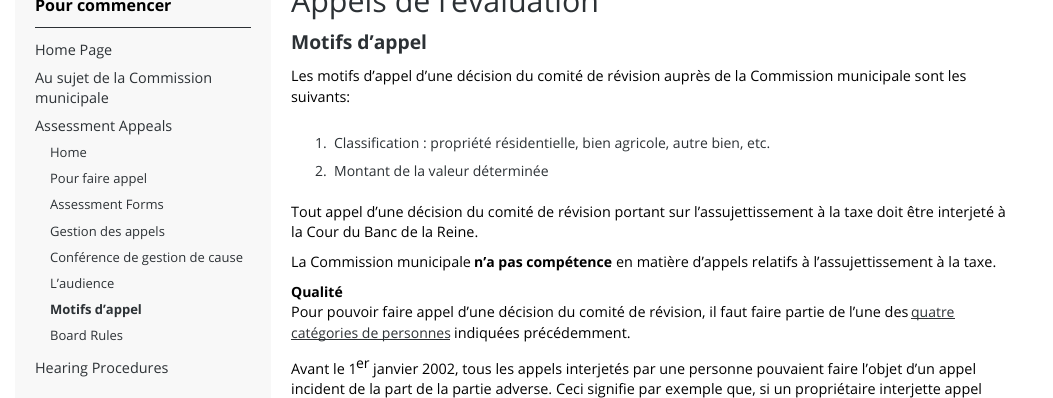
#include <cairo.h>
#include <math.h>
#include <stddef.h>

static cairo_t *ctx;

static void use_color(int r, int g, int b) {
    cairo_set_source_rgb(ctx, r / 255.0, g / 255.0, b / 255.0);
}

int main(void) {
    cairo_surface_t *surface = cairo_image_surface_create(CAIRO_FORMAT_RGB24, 1053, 398);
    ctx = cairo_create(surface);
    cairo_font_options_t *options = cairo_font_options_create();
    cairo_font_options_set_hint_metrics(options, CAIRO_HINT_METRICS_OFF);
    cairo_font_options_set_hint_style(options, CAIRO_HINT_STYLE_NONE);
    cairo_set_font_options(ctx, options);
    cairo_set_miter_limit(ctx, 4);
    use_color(255, 255, 255);
    cairo_paint(ctx);
    use_color(248, 248, 248);
    cairo_rectangle(ctx, 15, 0, 256, 398);
    cairo_fill(ctx);
    use_color(44, 49, 53);
    cairo_rectangle(ctx, 35, 27, 216, 1);
    cairo_fill(ctx);
    cairo_select_font_face(ctx, "Open Sans", CAIRO_FONT_SLANT_NORMAL, CAIRO_FONT_WEIGHT_BOLD);
    cairo_set_font_size(ctx, 16);
    use_color(0, 0, 0);
    cairo_move_to(ctx, 35, 11);
    cairo_show_text(ctx, "Pour commencer");
    cairo_select_font_face(ctx, "Open Sans", CAIRO_FONT_SLANT_NORMAL, CAIRO_FONT_WEIGHT_NORMAL);
    cairo_set_font_size(ctx, 14.4);
    use_color(44, 49, 53);
    cairo_move_to(ctx, 35, 55);
    cairo_show_text(ctx, "Home Page");
    cairo_move_to(ctx, 35, 83);
    cairo_show_text(ctx, "Au sujet de la Commission");
    cairo_move_to(ctx, 35, 103);
    cairo_show_text(ctx, "municipale");
    cairo_move_to(ctx, 35, 131);
    cairo_show_text(ctx, "Assessment Appeals");
    cairo_set_font_size(ctx, 13);
    cairo_move_to(ctx, 50, 157);
    cairo_show_text(ctx, "Home");
    cairo_move_to(ctx, 50, 183);
    cairo_show_text(ctx, "Pour faire appel");
    cairo_move_to(ctx, 50, 209);
    cairo_show_text(ctx, "Assessment Forms");
    cairo_move_to(ctx, 50, 236);
    cairo_show_text(ctx, "Gestion des appels");
    cairo_move_to(ctx, 50, 262);
    cairo_show_text(ctx, "Conférence de gestion de cause");
    cairo_move_to(ctx, 50, 288);
    cairo_show_text(ctx, "L’audience");
    cairo_select_font_face(ctx, "Open Sans", CAIRO_FONT_SLANT_NORMAL, CAIRO_FONT_WEIGHT_BOLD);
    cairo_move_to(ctx, 50, 314);
    cairo_show_text(ctx, "Motifs d’appel");
    cairo_select_font_face(ctx, "Open Sans", CAIRO_FONT_SLANT_NORMAL, CAIRO_FONT_WEIGHT_NORMAL);
    cairo_move_to(ctx, 50, 340);
    cairo_show_text(ctx, "Board Rules");
    cairo_set_font_size(ctx, 14.4);
    cairo_move_to(ctx, 35, 373);
    cairo_show_text(ctx, "Hearing Procedures");
    cairo_set_font_size(ctx, 30.4);
    cairo_move_to(ctx, 291, 12);
    cairo_show_text(ctx, "Appels de l’évaluation");
    cairo_select_font_face(ctx, "Open Sans", CAIRO_FONT_SLANT_NORMAL, CAIRO_FONT_WEIGHT_BOLD);
    cairo_set_font_size(ctx, 19.25);
    cairo_move_to(ctx, 291, 49);
    cairo_show_text(ctx, "Motifs d’appel");
    cairo_select_font_face(ctx, "Open Sans", CAIRO_FONT_SLANT_NORMAL, CAIRO_FONT_WEIGHT_NORMAL);
    cairo_set_font_size(ctx, 14.4);
    use_color(0, 0, 0);
    cairo_move_to(ctx, 291, 81);
    cairo_show_text(ctx, "Les motifs d’appel d’une décision du comité de révision auprès de la Commission municipale sont les");
    cairo_move_to(ctx, 291, 102);
    cairo_show_text(ctx, "suivants:");
    cairo_set_font_size(ctx, 14);
    use_color(44, 49, 53);
    cairo_move_to(ctx, 315, 148);
    cairo_show_text(ctx, "1.");
    cairo_move_to(ctx, 334, 148);
    cairo_show_text(ctx, "Classification : propriété résidentielle, bien agricole, autre bien, etc.");
    cairo_move_to(ctx, 315, 176);
    cairo_show_text(ctx, "2.");
    cairo_move_to(ctx, 334, 176);
    cairo_show_text(ctx, "Montant de la valeur déterminée");
    cairo_set_font_size(ctx, 14.4);
    use_color(0, 0, 0);
    cairo_move_to(ctx, 291, 217);
    cairo_show_text(ctx, "Tout appel d’une décision du comité de révision portant sur l’assujettissement à la taxe doit être interjeté à");
    cairo_move_to(ctx, 291, 237);
    cairo_show_text(ctx, "la Cour du Banc de la Reine.");
    cairo_move_to(ctx, 291, 267);
    cairo_show_text(ctx, "La Commission municipale");
    cairo_select_font_face(ctx, "Open Sans", CAIRO_FONT_SLANT_NORMAL, CAIRO_FONT_WEIGHT_BOLD);
    cairo_set_font_size(ctx, 14);
    cairo_move_to(ctx, 474, 267);
    cairo_show_text(ctx, "n’a pas compétence");
    cairo_select_font_face(ctx, "Open Sans", CAIRO_FONT_SLANT_NORMAL, CAIRO_FONT_WEIGHT_NORMAL);
    cairo_set_font_size(ctx, 14.4);
    cairo_move_to(ctx, 616, 267);
    cairo_show_text(ctx, "en matière d’appels relatifs à l’assujettissement à la taxe.");
    cairo_select_font_face(ctx, "Open Sans", CAIRO_FONT_SLANT_NORMAL, CAIRO_FONT_WEIGHT_BOLD);
    cairo_set_font_size(ctx, 14);
    cairo_move_to(ctx, 291, 297);
    cairo_show_text(ctx, "Qualité");
    cairo_select_font_face(ctx, "Open Sans", CAIRO_FONT_SLANT_NORMAL, CAIRO_FONT_WEIGHT_NORMAL);
    cairo_set_font_size(ctx, 14.4);
    cairo_move_to(ctx, 291, 317);
    cairo_show_text(ctx, "Pour pouvoir faire appel d’une décision du comité de révision, il faut faire partie de l’une des");
    use_color(44, 49, 53);
    cairo_rectangle(ctx, 911, 318, 44, 1);
    cairo_fill(ctx);
    cairo_set_font_size(ctx, 14);
    cairo_move_to(ctx, 911, 317);
    cairo_show_text(ctx, "quatre");
    cairo_rectangle(ctx, 291, 339, 159, 1);
    cairo_fill(ctx);
    cairo_move_to(ctx, 291, 338);
    cairo_show_text(ctx, "catégories de personnes");
    cairo_set_font_size(ctx, 14.4);
    use_color(0, 0, 0);
    cairo_move_to(ctx, 454, 338);
    cairo_show_text(ctx, "indiquées précédemment.");
    cairo_move_to(ctx, 291, 374);
    cairo_show_text(ctx, "Avant le 1");
    cairo_set_font_size(ctx, 14);
    cairo_move_to(ctx, 356, 368);
    cairo_show_text(ctx, "er");
    cairo_set_font_size(ctx, 14.4);
    cairo_move_to(ctx, 373, 374);
    cairo_show_text(ctx, "janvier 2002, tous les appels interjetés par une personne pouvaient faire l’objet d’un appel");
    cairo_move_to(ctx, 291, 394);
    cairo_show_text(ctx, "incident de la part de la partie adverse. Ceci signifie par exemple que, si un propriétaire interjette appel");
    cairo_surface_write_to_png(surface, "result.png");
    cairo_font_options_destroy(options);
    cairo_destroy(ctx);
    cairo_surface_destroy(surface);
    return 0;
}
